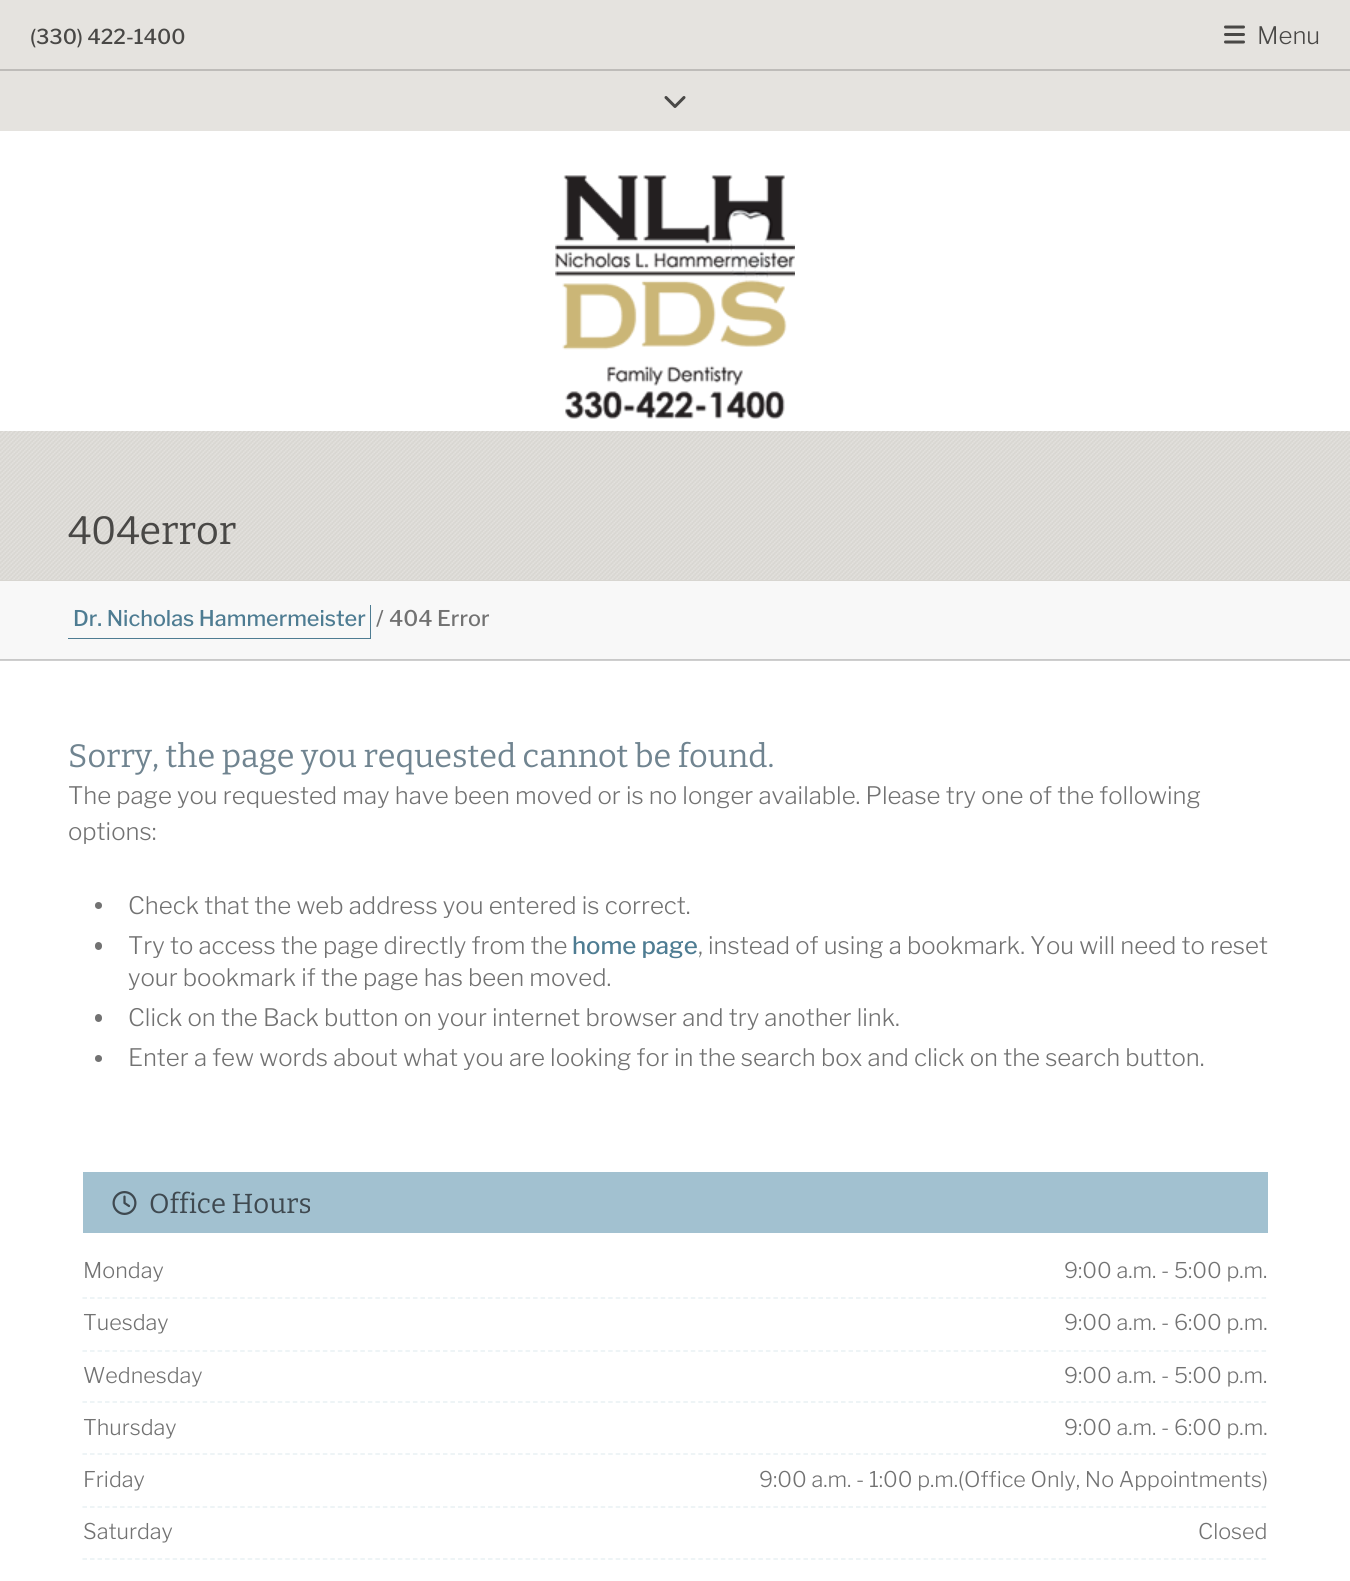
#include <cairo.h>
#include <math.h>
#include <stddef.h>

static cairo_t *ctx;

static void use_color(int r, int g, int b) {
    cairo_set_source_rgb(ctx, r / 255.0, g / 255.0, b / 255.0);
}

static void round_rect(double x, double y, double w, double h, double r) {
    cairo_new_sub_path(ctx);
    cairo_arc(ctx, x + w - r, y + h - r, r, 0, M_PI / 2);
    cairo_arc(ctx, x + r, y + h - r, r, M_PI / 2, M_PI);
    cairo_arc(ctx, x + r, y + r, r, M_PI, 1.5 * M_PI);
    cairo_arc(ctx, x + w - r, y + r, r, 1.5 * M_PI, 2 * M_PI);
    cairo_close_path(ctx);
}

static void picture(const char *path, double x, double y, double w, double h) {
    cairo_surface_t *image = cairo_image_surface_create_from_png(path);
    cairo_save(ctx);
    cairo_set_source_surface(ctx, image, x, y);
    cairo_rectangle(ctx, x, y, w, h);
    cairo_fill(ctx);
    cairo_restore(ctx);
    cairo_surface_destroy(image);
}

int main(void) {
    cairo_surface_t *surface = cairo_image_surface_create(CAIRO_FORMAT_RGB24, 1350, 1581);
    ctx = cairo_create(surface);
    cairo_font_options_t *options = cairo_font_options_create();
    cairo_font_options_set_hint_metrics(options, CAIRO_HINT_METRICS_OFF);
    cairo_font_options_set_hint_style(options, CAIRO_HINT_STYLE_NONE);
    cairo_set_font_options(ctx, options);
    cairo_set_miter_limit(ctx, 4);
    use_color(255, 255, 255);
    cairo_paint(ctx);
    use_color(229, 227, 223);
    cairo_rectangle(ctx, 0, 0, 1350, 131);
    cairo_fill(ctx);
    cairo_select_font_face(ctx, "Libre Franklin Medium", CAIRO_FONT_SLANT_NORMAL, CAIRO_FONT_WEIGHT_NORMAL);
    cairo_set_font_size(ctx, 20.5);
    use_color(73, 72, 70);
    cairo_move_to(ctx, 30, 44);
    cairo_show_text(ctx, "(330) 422-1400");
    picture("img1.png", 1224, 25, 21, 19);
    cairo_select_font_face(ctx, "Libre Franklin Light", CAIRO_FONT_SLANT_NORMAL, CAIRO_FONT_WEIGHT_NORMAL);
    cairo_set_font_size(ctx, 24);
    cairo_move_to(ctx, 1257, 44);
    cairo_show_text(ctx, "Menu");
    use_color(190, 188, 185);
    cairo_rectangle(ctx, 0, 69, 1350, 2);
    cairo_fill(ctx);
    picture("img2.png", 664, 96, 22, 12);
    use_color(206, 206, 206);
    cairo_rectangle(ctx, 0, 660, 1350, 1);
    cairo_fill(ctx);
    picture("img3.png", 555, 175, 240, 244);
    use_color(216, 214, 209);
    cairo_rectangle(ctx, 0, 431, 1350, 150);
    cairo_fill(ctx);
    picture("img4.png", 0, 431, 1350, 149);
    cairo_select_font_face(ctx, "Bitter Thin", CAIRO_FONT_SLANT_NORMAL, CAIRO_FONT_WEIGHT_NORMAL);
    cairo_set_font_size(ctx, 39.5);
    use_color(73, 72, 70);
    cairo_move_to(ctx, 68, 544);
    cairo_show_text(ctx, "404error");
    use_color(248, 248, 248);
    cairo_rectangle(ctx, 0, 581, 1350, 78);
    cairo_fill(ctx);
    use_color(201, 201, 201);
    cairo_rectangle(ctx, 0, 659, 1350, 1);
    cairo_fill(ctx);
    use_color(78, 124, 146);
    cairo_new_path(ctx);
    cairo_move_to(ctx, 68, 638);
    cairo_line_to(ctx, 68, 639);
    cairo_line_to(ctx, 371, 639);
    cairo_line_to(ctx, 371, 605);
    cairo_line_to(ctx, 370, 605);
    cairo_line_to(ctx, 370, 638);
    cairo_close_path(ctx);
    cairo_fill(ctx);
    cairo_select_font_face(ctx, "Libre Franklin Medium", CAIRO_FONT_SLANT_NORMAL, CAIRO_FONT_WEIGHT_NORMAL);
    cairo_set_font_size(ctx, 21.6);
    cairo_move_to(ctx, 73, 626);
    cairo_show_text(ctx, "Dr. Nicholas Hammermeister");
    use_color(114, 114, 114);
    cairo_move_to(ctx, 376, 626);
    cairo_show_text(ctx, "/");
    cairo_move_to(ctx, 389, 626);
    cairo_show_text(ctx, "404 Error");
    cairo_select_font_face(ctx, "Bitter Thin", CAIRO_FONT_SLANT_NORMAL, CAIRO_FONT_WEIGHT_NORMAL);
    cairo_set_font_size(ctx, 32.4);
    use_color(112, 132, 144);
    cairo_move_to(ctx, 68, 767);
    cairo_show_text(ctx, "Sorry, the page you requested cannot be found.");
    cairo_select_font_face(ctx, "Libre Franklin Light", CAIRO_FONT_SLANT_NORMAL, CAIRO_FONT_WEIGHT_NORMAL);
    cairo_set_font_size(ctx, 24);
    use_color(114, 114, 114);
    cairo_move_to(ctx, 68, 804);
    cairo_show_text(ctx, "The page you requested may have been moved or is no longer available. Please try one of the following");
    cairo_move_to(ctx, 68, 840);
    cairo_show_text(ctx, "options:");
    cairo_new_path(ctx);
    cairo_arc(ctx, 98.5, 905.5, 3.5, 0, 2 * M_PI);
    cairo_fill(ctx);
    cairo_move_to(ctx, 128, 914);
    cairo_show_text(ctx, "Check that the web address you entered is correct.");
    round_rect(95, 942, 7, 8, 3.5);
    cairo_fill(ctx);
    cairo_move_to(ctx, 128, 954);
    cairo_show_text(ctx, "Try to access the page directly from the");
    cairo_select_font_face(ctx, "Libre Franklin Medium", CAIRO_FONT_SLANT_NORMAL, CAIRO_FONT_WEIGHT_NORMAL);
    use_color(78, 124, 146);
    cairo_move_to(ctx, 572, 954);
    cairo_show_text(ctx, "home page");
    cairo_select_font_face(ctx, "Libre Franklin Light", CAIRO_FONT_SLANT_NORMAL, CAIRO_FONT_WEIGHT_NORMAL);
    use_color(114, 114, 114);
    cairo_move_to(ctx, 698, 954);
    cairo_show_text(ctx, ", instead of using a bookmark. You will need to reset");
    cairo_move_to(ctx, 128, 986);
    cairo_show_text(ctx, "your bookmark if the page has been moved.");
    round_rect(95, 1014, 7, 8, 3.5);
    cairo_fill(ctx);
    cairo_move_to(ctx, 128, 1026);
    cairo_show_text(ctx, "Click on the Back button on your internet browser and try another link.");
    cairo_new_path(ctx);
    cairo_arc(ctx, 98.5, 1058.5, 3.5, 0, 2 * M_PI);
    cairo_fill(ctx);
    cairo_move_to(ctx, 128, 1066);
    cairo_show_text(ctx, "Enter a few words about what you are looking for in the search box and click on the search button.");
    use_color(162, 193, 208);
    cairo_rectangle(ctx, 83, 1172, 1185, 61);
    cairo_fill(ctx);
    picture("img5.png", 112, 1191, 25, 24);
    cairo_select_font_face(ctx, "Bitter Thin", CAIRO_FONT_SLANT_NORMAL, CAIRO_FONT_WEIGHT_NORMAL);
    cairo_set_font_size(ctx, 27.5);
    use_color(63, 73, 80);
    cairo_move_to(ctx, 149, 1213);
    cairo_show_text(ctx, "Office Hours");
    cairo_new_path(ctx);
    cairo_move_to(ctx, 82.5, 1298);
    cairo_line_to(ctx, 1267.5, 1298);
    use_color(232, 240, 243);
    cairo_set_line_width(ctx, 1.5);
    cairo_set_dash(ctx, (double[]){4.5, 3.01}, 2, 0);
    cairo_stroke(ctx);
    cairo_select_font_face(ctx, "Libre Franklin Light", CAIRO_FONT_SLANT_NORMAL, CAIRO_FONT_WEIGHT_NORMAL);
    cairo_set_font_size(ctx, 21.6);
    use_color(114, 114, 114);
    cairo_move_to(ctx, 83, 1278);
    cairo_show_text(ctx, "Monday");
    cairo_move_to(ctx, 1064, 1278);
    cairo_show_text(ctx, "9:00 a.m. - 5:00 p.m.");
    cairo_new_path(ctx);
    cairo_move_to(ctx, 82.5, 1351);
    cairo_line_to(ctx, 1267.5, 1351);
    use_color(232, 240, 243);
    cairo_stroke(ctx);
    use_color(114, 114, 114);
    cairo_move_to(ctx, 83, 1330);
    cairo_show_text(ctx, "Tuesday");
    cairo_move_to(ctx, 1064, 1330);
    cairo_show_text(ctx, "9:00 a.m. - 6:00 p.m.");
    cairo_new_path(ctx);
    cairo_move_to(ctx, 82.5, 1402);
    cairo_line_to(ctx, 1267.5, 1402);
    use_color(232, 240, 243);
    cairo_stroke(ctx);
    use_color(114, 114, 114);
    cairo_move_to(ctx, 83, 1383);
    cairo_show_text(ctx, "Wednesday");
    cairo_move_to(ctx, 1064, 1383);
    cairo_show_text(ctx, "9:00 a.m. - 5:00 p.m.");
    cairo_new_path(ctx);
    cairo_move_to(ctx, 82.5, 1454);
    cairo_line_to(ctx, 1267.5, 1454);
    use_color(232, 240, 243);
    cairo_stroke(ctx);
    use_color(114, 114, 114);
    cairo_move_to(ctx, 83, 1435);
    cairo_show_text(ctx, "Thursday");
    cairo_move_to(ctx, 1064, 1435);
    cairo_show_text(ctx, "9:00 a.m. - 6:00 p.m.");
    cairo_new_path(ctx);
    cairo_move_to(ctx, 82.5, 1507);
    cairo_line_to(ctx, 1267.5, 1507);
    use_color(232, 240, 243);
    cairo_stroke(ctx);
    use_color(114, 114, 114);
    cairo_move_to(ctx, 83, 1487);
    cairo_show_text(ctx, "Friday");
    cairo_move_to(ctx, 759, 1487);
    cairo_show_text(ctx, "9:00 a.m. - 1:00 p.m.(Office Only, No Appointments)");
    cairo_new_path(ctx);
    cairo_move_to(ctx, 82.5, 1559);
    cairo_line_to(ctx, 1267.5, 1559);
    use_color(232, 240, 243);
    cairo_stroke(ctx);
    use_color(114, 114, 114);
    cairo_move_to(ctx, 83, 1539);
    cairo_show_text(ctx, "Saturday");
    cairo_move_to(ctx, 1198, 1539);
    cairo_show_text(ctx, "Closed");
    cairo_surface_write_to_png(surface, "result.png");
    cairo_font_options_destroy(options);
    cairo_destroy(ctx);
    cairo_surface_destroy(surface);
    return 0;
}
